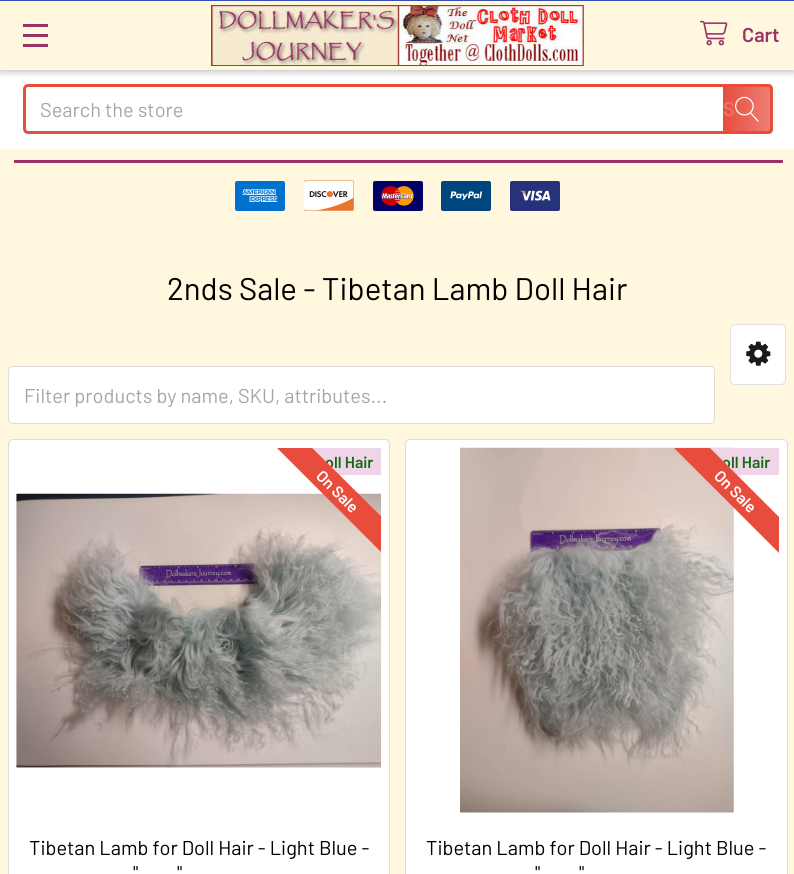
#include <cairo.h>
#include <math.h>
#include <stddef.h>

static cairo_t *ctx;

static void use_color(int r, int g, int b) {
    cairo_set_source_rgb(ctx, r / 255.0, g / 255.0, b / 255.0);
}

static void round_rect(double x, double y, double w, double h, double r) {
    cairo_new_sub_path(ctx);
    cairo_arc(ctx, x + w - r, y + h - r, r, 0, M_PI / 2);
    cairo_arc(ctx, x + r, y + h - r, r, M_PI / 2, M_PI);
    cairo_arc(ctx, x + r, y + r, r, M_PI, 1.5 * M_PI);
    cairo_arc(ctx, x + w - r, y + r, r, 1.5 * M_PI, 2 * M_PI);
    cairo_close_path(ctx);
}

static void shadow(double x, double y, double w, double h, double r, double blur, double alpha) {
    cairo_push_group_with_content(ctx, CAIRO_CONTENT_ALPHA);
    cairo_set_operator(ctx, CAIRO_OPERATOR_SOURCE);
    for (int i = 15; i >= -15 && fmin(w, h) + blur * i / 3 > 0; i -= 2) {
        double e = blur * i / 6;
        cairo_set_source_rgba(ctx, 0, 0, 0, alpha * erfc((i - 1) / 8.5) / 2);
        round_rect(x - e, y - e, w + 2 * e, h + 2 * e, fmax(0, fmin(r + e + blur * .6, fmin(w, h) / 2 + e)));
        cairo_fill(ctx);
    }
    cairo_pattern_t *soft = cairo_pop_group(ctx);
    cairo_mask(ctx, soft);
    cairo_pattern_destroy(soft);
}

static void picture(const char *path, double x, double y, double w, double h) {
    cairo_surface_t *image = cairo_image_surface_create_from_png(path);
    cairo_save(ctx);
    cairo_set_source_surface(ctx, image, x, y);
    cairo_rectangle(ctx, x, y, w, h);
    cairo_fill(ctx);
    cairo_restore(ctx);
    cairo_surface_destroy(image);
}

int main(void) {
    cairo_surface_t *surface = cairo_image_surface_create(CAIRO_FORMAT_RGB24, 794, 874);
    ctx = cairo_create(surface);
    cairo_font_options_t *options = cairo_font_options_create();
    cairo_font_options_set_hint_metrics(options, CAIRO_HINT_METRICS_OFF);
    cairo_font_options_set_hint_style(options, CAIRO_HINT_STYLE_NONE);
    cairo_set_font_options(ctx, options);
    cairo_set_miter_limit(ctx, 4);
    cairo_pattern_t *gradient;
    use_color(255, 247, 222);
    cairo_paint(ctx);
    use_color(255, 255, 255);
    cairo_rectangle(ctx, 0, 70, 794, 79);
    cairo_fill(ctx);
    use_color(0, 0, 0);
    shadow(0, 3, 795, 70, 0, 3, 0.2);
    use_color(255, 247, 222);
    cairo_rectangle(ctx, 0, 1, 794, 69);
    cairo_fill(ctx);
    use_color(56, 79, 178);
    cairo_rectangle(ctx, 0, 0, 794, 1);
    cairo_fill(ctx);
    use_color(153, 51, 101);
    cairo_rectangle(ctx, 23, 34, 25, 3);
    cairo_fill(ctx);
    cairo_rectangle(ctx, 23, 24, 25, 3);
    cairo_fill(ctx);
    cairo_rectangle(ctx, 23, 44, 25, 3);
    cairo_fill(ctx);
    picture("img1.png", 211, 5, 373, 61);
    picture("img2.png", 700, 20, 28, 26);
    cairo_select_font_face(ctx, "Barlow SemiBold", CAIRO_FONT_SLANT_NORMAL, CAIRO_FONT_WEIGHT_NORMAL);
    cairo_set_font_size(ctx, 20);
    cairo_move_to(ctx, 742, 42);
    cairo_show_text(ctx, "Cart");
    round_rect(24.5, 85.5, 747, 47, 3.5);
    use_color(231, 76, 60);
    cairo_set_line_width(ctx, 3);
    cairo_stroke(ctx);
    cairo_select_font_face(ctx, "Barlow", CAIRO_FONT_SLANT_NORMAL, CAIRO_FONT_WEIGHT_NORMAL);
    use_color(165, 165, 165);
    cairo_move_to(ctx, 40, 117);
    cairo_show_text(ctx, "Search the store");
    gradient = cairo_pattern_create_linear(723, 109, 773, 109);
    cairo_pattern_add_color_stop_rgba(gradient, 0, 0.906, 0.298, 0.235, 1);
    cairo_pattern_add_color_stop_rgba(gradient, 1, 0.906, 0.298, 0.235, 0.7);
    cairo_set_source(ctx, gradient);
    cairo_pattern_destroy(gradient);
    cairo_new_path(ctx);
    cairo_move_to(ctx, 723, 84);
    cairo_line_to(ctx, 768, 84);
    cairo_curve_to(ctx, 771, 84, 773, 86, 773, 89);
    cairo_line_to(ctx, 773, 129);
    cairo_curve_to(ctx, 773, 132, 771, 134, 768, 134);
    cairo_line_to(ctx, 723, 134);
    cairo_close_path(ctx);
    cairo_fill(ctx);
    cairo_select_font_face(ctx, "Barlow SemiBold", CAIRO_FONT_SLANT_NORMAL, CAIRO_FONT_WEIGHT_NORMAL);
    use_color(236, 114, 101);
    cairo_move_to(ctx, 723, 116);
    cairo_show_text(ctx, "S");
    picture("img3.png", 735, 96, 24, 26);
    use_color(153, 51, 101);
    cairo_rectangle(ctx, 14, 160, 769, 3);
    cairo_fill(ctx);
    picture("img4.png", 235, 181, 50, 30);
    picture("img5.png", 304, 180, 50, 31);
    picture("img6.png", 373, 181, 50, 30);
    picture("img7.png", 441, 181, 50, 30);
    picture("img8.png", 510, 181, 50, 30);
    cairo_select_font_face(ctx, "Barlow", CAIRO_FONT_SLANT_NORMAL, CAIRO_FONT_WEIGHT_NORMAL);
    cairo_set_font_size(ctx, 31.25);
    use_color(0, 0, 0);
    cairo_move_to(ctx, 167, 300);
    cairo_show_text(ctx, "2nds Sale - Tibetan Lamb Doll Hair");
    use_color(255, 255, 255);
    round_rect(730.5, 324.5, 55, 60, 4.5);
    cairo_fill_preserve(ctx);
    use_color(224, 225, 228);
    cairo_set_line_width(ctx, 1);
    cairo_stroke(ctx);
    picture("img9.png", 746, 341, 25, 25);
    use_color(255, 255, 255);
    round_rect(8.5, 366.5, 706, 57, 4.5);
    cairo_fill_preserve(ctx);
    use_color(220, 220, 220);
    cairo_stroke(ctx);
    use_color(255, 255, 255);
    round_rect(9, 368, 705, 55, 5);
    cairo_fill(ctx);
    cairo_set_font_size(ctx, 20);
    use_color(165, 165, 165);
    cairo_move_to(ctx, 24, 403);
    cairo_show_text(ctx, "Filter products by name, SKU, attributes...");
    use_color(255, 255, 255);
    round_rect(8.5, 439.5, 381, 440, 4.5);
    cairo_fill_preserve(ctx);
    use_color(220, 220, 220);
    cairo_stroke(ctx);
    use_color(239, 213, 231);
    cairo_rectangle(ctx, 312, 448, 69, 27);
    cairo_fill(ctx);
    cairo_select_font_face(ctx, "Barlow SemiBold", CAIRO_FONT_SLANT_NORMAL, CAIRO_FONT_WEIGHT_NORMAL);
    cairo_set_font_size(ctx, 16);
    use_color(22, 107, 23);
    cairo_move_to(ctx, 325, 468);
    cairo_show_text(ctx, "oll Hair");
    picture("img10.png", 16, 493, 366, 275);
    cairo_save(ctx);
    cairo_rectangle(ctx, 16, 448, 365, 372);
    cairo_clip(ctx);
    use_color(231, 76, 60);
    cairo_new_path(ctx);
    cairo_move_to(ctx, 294, 430);
    cairo_line_to(ctx, 400, 535);
    cairo_line_to(ctx, 382, 553);
    cairo_line_to(ctx, 277, 448);
    cairo_close_path(ctx);
    cairo_fill(ctx);
    cairo_restore(ctx);
    use_color(255, 255, 255);
    cairo_save(ctx);
    cairo_translate(ctx, 315, 477);
    cairo_rotate(ctx, 45 * M_PI / 180);
    cairo_move_to(ctx, 0, 0);
    cairo_show_text(ctx, "On Sale");
    cairo_restore(ctx);
    cairo_select_font_face(ctx, "Barlow", CAIRO_FONT_SLANT_NORMAL, CAIRO_FONT_WEIGHT_NORMAL);
    cairo_set_font_size(ctx, 20);
    use_color(0, 0, 0);
    cairo_move_to(ctx, 29, 855);
    cairo_show_text(ctx, "Tibetan Lamb for Doll Hair - Light Blue -");
    cairo_move_to(ctx, 133, 880);
    cairo_show_text(ctx, "\"");
    cairo_move_to(ctx, 177, 880);
    cairo_show_text(ctx, "\"");
    use_color(255, 255, 255);
    round_rect(405.5, 439.5, 382, 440, 4.5);
    cairo_fill_preserve(ctx);
    use_color(220, 220, 220);
    cairo_stroke(ctx);
    picture("img11.png", 460, 447, 274, 366);
    use_color(239, 213, 231);
    cairo_rectangle(ctx, 710, 448, 69, 27);
    cairo_fill(ctx);
    cairo_select_font_face(ctx, "Barlow SemiBold", CAIRO_FONT_SLANT_NORMAL, CAIRO_FONT_WEIGHT_NORMAL);
    cairo_set_font_size(ctx, 16);
    use_color(22, 107, 23);
    cairo_move_to(ctx, 722, 468);
    cairo_show_text(ctx, "oll Hair");
    cairo_save(ctx);
    cairo_rectangle(ctx, 414, 448, 365, 372);
    cairo_clip(ctx);
    use_color(231, 76, 60);
    cairo_new_path(ctx);
    cairo_move_to(ctx, 692, 430);
    cairo_line_to(ctx, 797, 535);
    cairo_line_to(ctx, 779, 553);
    cairo_line_to(ctx, 674, 448);
    cairo_close_path(ctx);
    cairo_fill(ctx);
    cairo_restore(ctx);
    use_color(255, 255, 255);
    cairo_save(ctx);
    cairo_translate(ctx, 713, 477);
    cairo_rotate(ctx, 45 * M_PI / 180);
    cairo_move_to(ctx, 0, 0);
    cairo_show_text(ctx, "On Sale");
    cairo_restore(ctx);
    cairo_select_font_face(ctx, "Barlow", CAIRO_FONT_SLANT_NORMAL, CAIRO_FONT_WEIGHT_NORMAL);
    cairo_set_font_size(ctx, 20);
    use_color(0, 0, 0);
    cairo_move_to(ctx, 426, 855);
    cairo_show_text(ctx, "Tibetan Lamb for Doll Hair - Light Blue -");
    cairo_move_to(ctx, 535, 880);
    cairo_show_text(ctx, "\"");
    cairo_move_to(ctx, 579, 880);
    cairo_show_text(ctx, "\"");
    cairo_surface_write_to_png(surface, "result.png");
    cairo_font_options_destroy(options);
    cairo_destroy(ctx);
    cairo_surface_destroy(surface);
    return 0;
}
